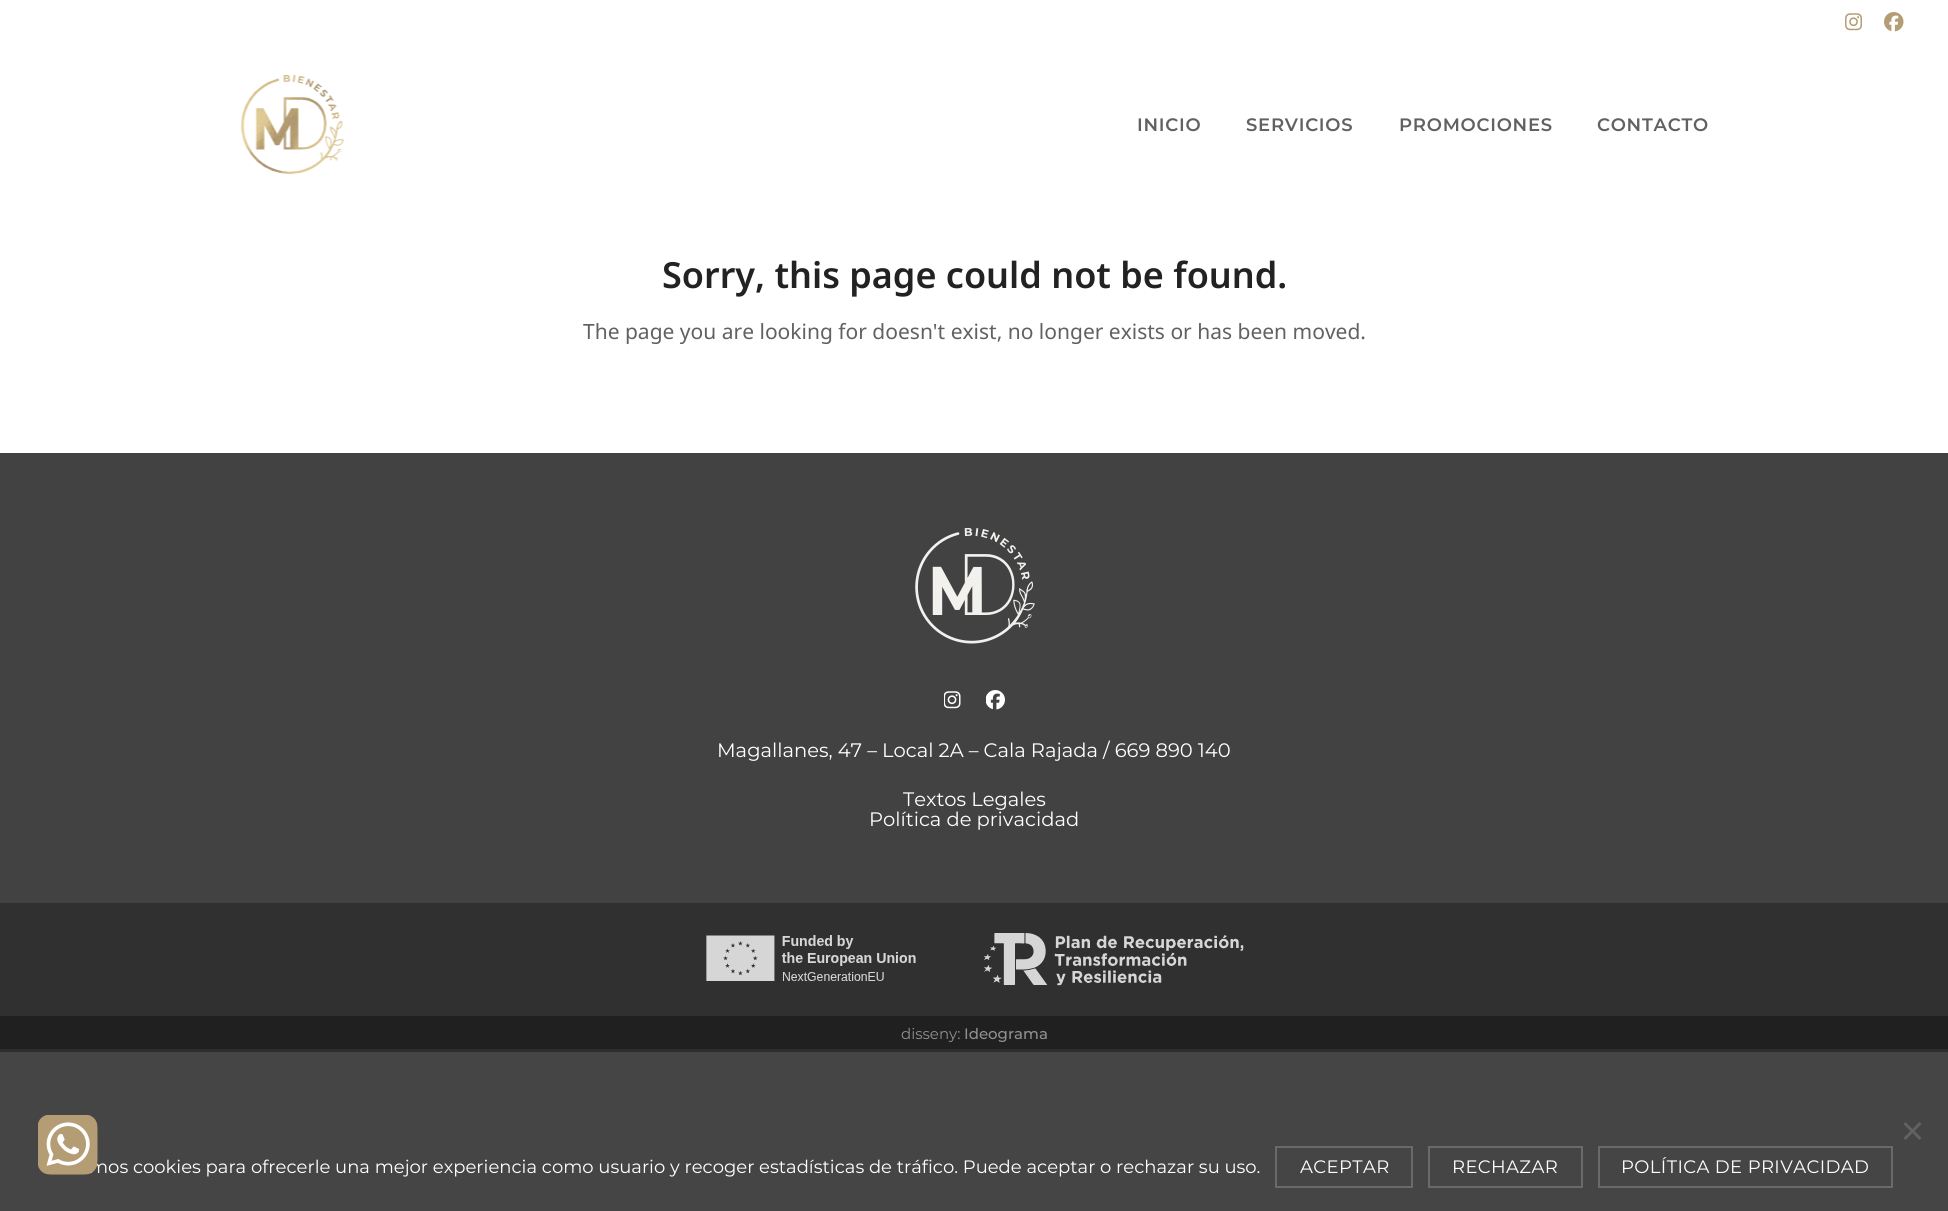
#include <cairo.h>
#include <math.h>
#include <stddef.h>

static cairo_t *ctx;

static void use_color(int r, int g, int b) {
    cairo_set_source_rgb(ctx, r / 255.0, g / 255.0, b / 255.0);
}

static void spaced_text(double x, double y, const char *s, double letter, double word) {
    cairo_move_to(ctx, x, y);
    while (*s) {
        char ch[5] = {0};
        int n = 0;
        do ch[n++] = *s++; while ((*s & 0xC0) == 0x80);
        cairo_show_text(ctx, ch);
        cairo_rel_move_to(ctx, letter + word * (*ch == ' '), 0);
    }
}

static void picture(const char *path, double x, double y, double w, double h) {
    cairo_surface_t *image = cairo_image_surface_create_from_png(path);
    cairo_save(ctx);
    cairo_set_source_surface(ctx, image, x, y);
    cairo_rectangle(ctx, x, y, w, h);
    cairo_fill(ctx);
    cairo_restore(ctx);
    cairo_surface_destroy(image);
}

int main(void) {
    cairo_surface_t *surface = cairo_image_surface_create(CAIRO_FORMAT_RGB24, 1948, 1211);
    ctx = cairo_create(surface);
    cairo_font_options_t *options = cairo_font_options_create();
    cairo_font_options_set_hint_metrics(options, CAIRO_HINT_METRICS_OFF);
    cairo_font_options_set_hint_style(options, CAIRO_HINT_STYLE_NONE);
    cairo_set_font_options(ctx, options);
    cairo_set_miter_limit(ctx, 4);
    use_color(255, 255, 255);
    cairo_paint(ctx);
    use_color(69, 69, 69);
    cairo_rectangle(ctx, 0, 1052, 1948, 159);
    cairo_fill(ctx);
    picture("img1.png", 1845, 13, 17, 18);
    picture("img2.png", 1884, 12, 20, 20);
    picture("img3.png", 240, 75, 104, 99);
    cairo_select_font_face(ctx, "Montserrat SemiBold", CAIRO_FONT_SLANT_NORMAL, CAIRO_FONT_WEIGHT_NORMAL);
    cairo_set_font_size(ctx, 18);
    use_color(97, 97, 97);
    spaced_text(1137, 131, "INICIO", 0.75, 0);
    spaced_text(1246, 131, "SERVICIOS", 0.75, 0);
    spaced_text(1399, 131, "PROMOCIONES", 0.75, 0);
    spaced_text(1597, 131, "CONTACTO", 0.75, 0);
    cairo_select_font_face(ctx, "Noto Sans SemiBold", CAIRO_FONT_SLANT_NORMAL, CAIRO_FONT_WEIGHT_NORMAL);
    cairo_set_font_size(ctx, 36);
    use_color(34, 34, 34);
    cairo_move_to(ctx, 662, 288);
    cairo_show_text(ctx, "Sorry, this page could not be found.");
    cairo_select_font_face(ctx, "Noto Sans", CAIRO_FONT_SLANT_NORMAL, CAIRO_FONT_WEIGHT_NORMAL);
    cairo_set_font_size(ctx, 21);
    use_color(97, 97, 97);
    cairo_move_to(ctx, 583, 339);
    cairo_show_text(ctx, "The page you are looking for doesn't exist, no longer exists or has been moved.");
    use_color(66, 66, 67);
    cairo_rectangle(ctx, 0, 453, 1948, 450);
    cairo_fill(ctx);
    picture("img4.png", 915, 528, 120, 116);
    picture("img5.png", 944, 691, 17, 18);
    picture("img6.png", 986, 690, 19, 20);
    cairo_select_font_face(ctx, "Montserrat", CAIRO_FONT_SLANT_NORMAL, CAIRO_FONT_WEIGHT_NORMAL);
    cairo_set_font_size(ctx, 19.5);
    use_color(255, 255, 255);
    cairo_move_to(ctx, 717, 757);
    cairo_show_text(ctx, "Magallanes, 47 – Local 2A – Cala Rajada / 669 890 140");
    cairo_move_to(ctx, 903, 806);
    cairo_show_text(ctx, "Textos Legales");
    cairo_move_to(ctx, 869, 826);
    cairo_show_text(ctx, "Política de privacidad");
    use_color(48, 48, 48);
    cairo_rectangle(ctx, 0, 903, 1948, 113);
    cairo_fill(ctx);
    picture("img7.png", 706, 933, 538, 53);
    use_color(32, 32, 32);
    cairo_rectangle(ctx, 0, 1016, 1948, 33);
    cairo_fill(ctx);
    use_color(46, 46, 46);
    cairo_rectangle(ctx, 0, 1049, 1948, 3);
    cairo_fill(ctx);
    cairo_set_font_size(ctx, 15);
    use_color(144, 144, 144);
    cairo_move_to(ctx, 901, 1039);
    cairo_show_text(ctx, "disseny:");
    cairo_select_font_face(ctx, "Montserrat Medium", CAIRO_FONT_SLANT_NORMAL, CAIRO_FONT_WEIGHT_NORMAL);
    cairo_move_to(ctx, 964, 1039);
    cairo_show_text(ctx, "Ideograma");
    cairo_select_font_face(ctx, "Montserrat", CAIRO_FONT_SLANT_NORMAL, CAIRO_FONT_WEIGHT_NORMAL);
    cairo_set_font_size(ctx, 18);
    use_color(255, 255, 255);
    cairo_move_to(ctx, 89, 1173);
    cairo_show_text(ctx, "mos cookies para ofrecerle una mejor experiencia como usuario y recoger estadísticas de tráfico. Puede aceptar o rechazar su uso.");
    picture("img8.png", 38, 1115, 60, 60);
    use_color(98, 98, 98);
    cairo_new_path(ctx);
    cairo_move_to(ctx, 1919.5, 1122);
    cairo_line_to(ctx, 1921.5, 1124);
    cairo_line_to(ctx, 1905.5, 1140);
    cairo_line_to(ctx, 1903.5, 1138);
    cairo_close_path(ctx);
    cairo_fill(ctx);
    cairo_new_path(ctx);
    cairo_move_to(ctx, 1903.5, 1124);
    cairo_line_to(ctx, 1905.5, 1122);
    cairo_line_to(ctx, 1921.5, 1138);
    cairo_line_to(ctx, 1919.5, 1140);
    cairo_close_path(ctx);
    cairo_fill(ctx);
    cairo_rectangle(ctx, 1276, 1147, 136, 40);
    use_color(106, 106, 106);
    cairo_stroke(ctx);
    use_color(255, 255, 255);
    spaced_text(1300, 1173, "ACEPTAR", 0.4, 0);
    cairo_rectangle(ctx, 1429, 1147, 153, 40);
    use_color(106, 106, 106);
    cairo_stroke(ctx);
    use_color(255, 255, 255);
    spaced_text(1452, 1173, "RECHAZAR", 0.4, 0);
    cairo_rectangle(ctx, 1599, 1147, 293, 40);
    use_color(106, 106, 106);
    cairo_stroke(ctx);
    use_color(255, 255, 255);
    spaced_text(1621, 1173, "POLÍTICA DE PRIVACIDAD", 0.4, 0);
    cairo_surface_write_to_png(surface, "result.png");
    cairo_font_options_destroy(options);
    cairo_destroy(ctx);
    cairo_surface_destroy(surface);
    return 0;
}
